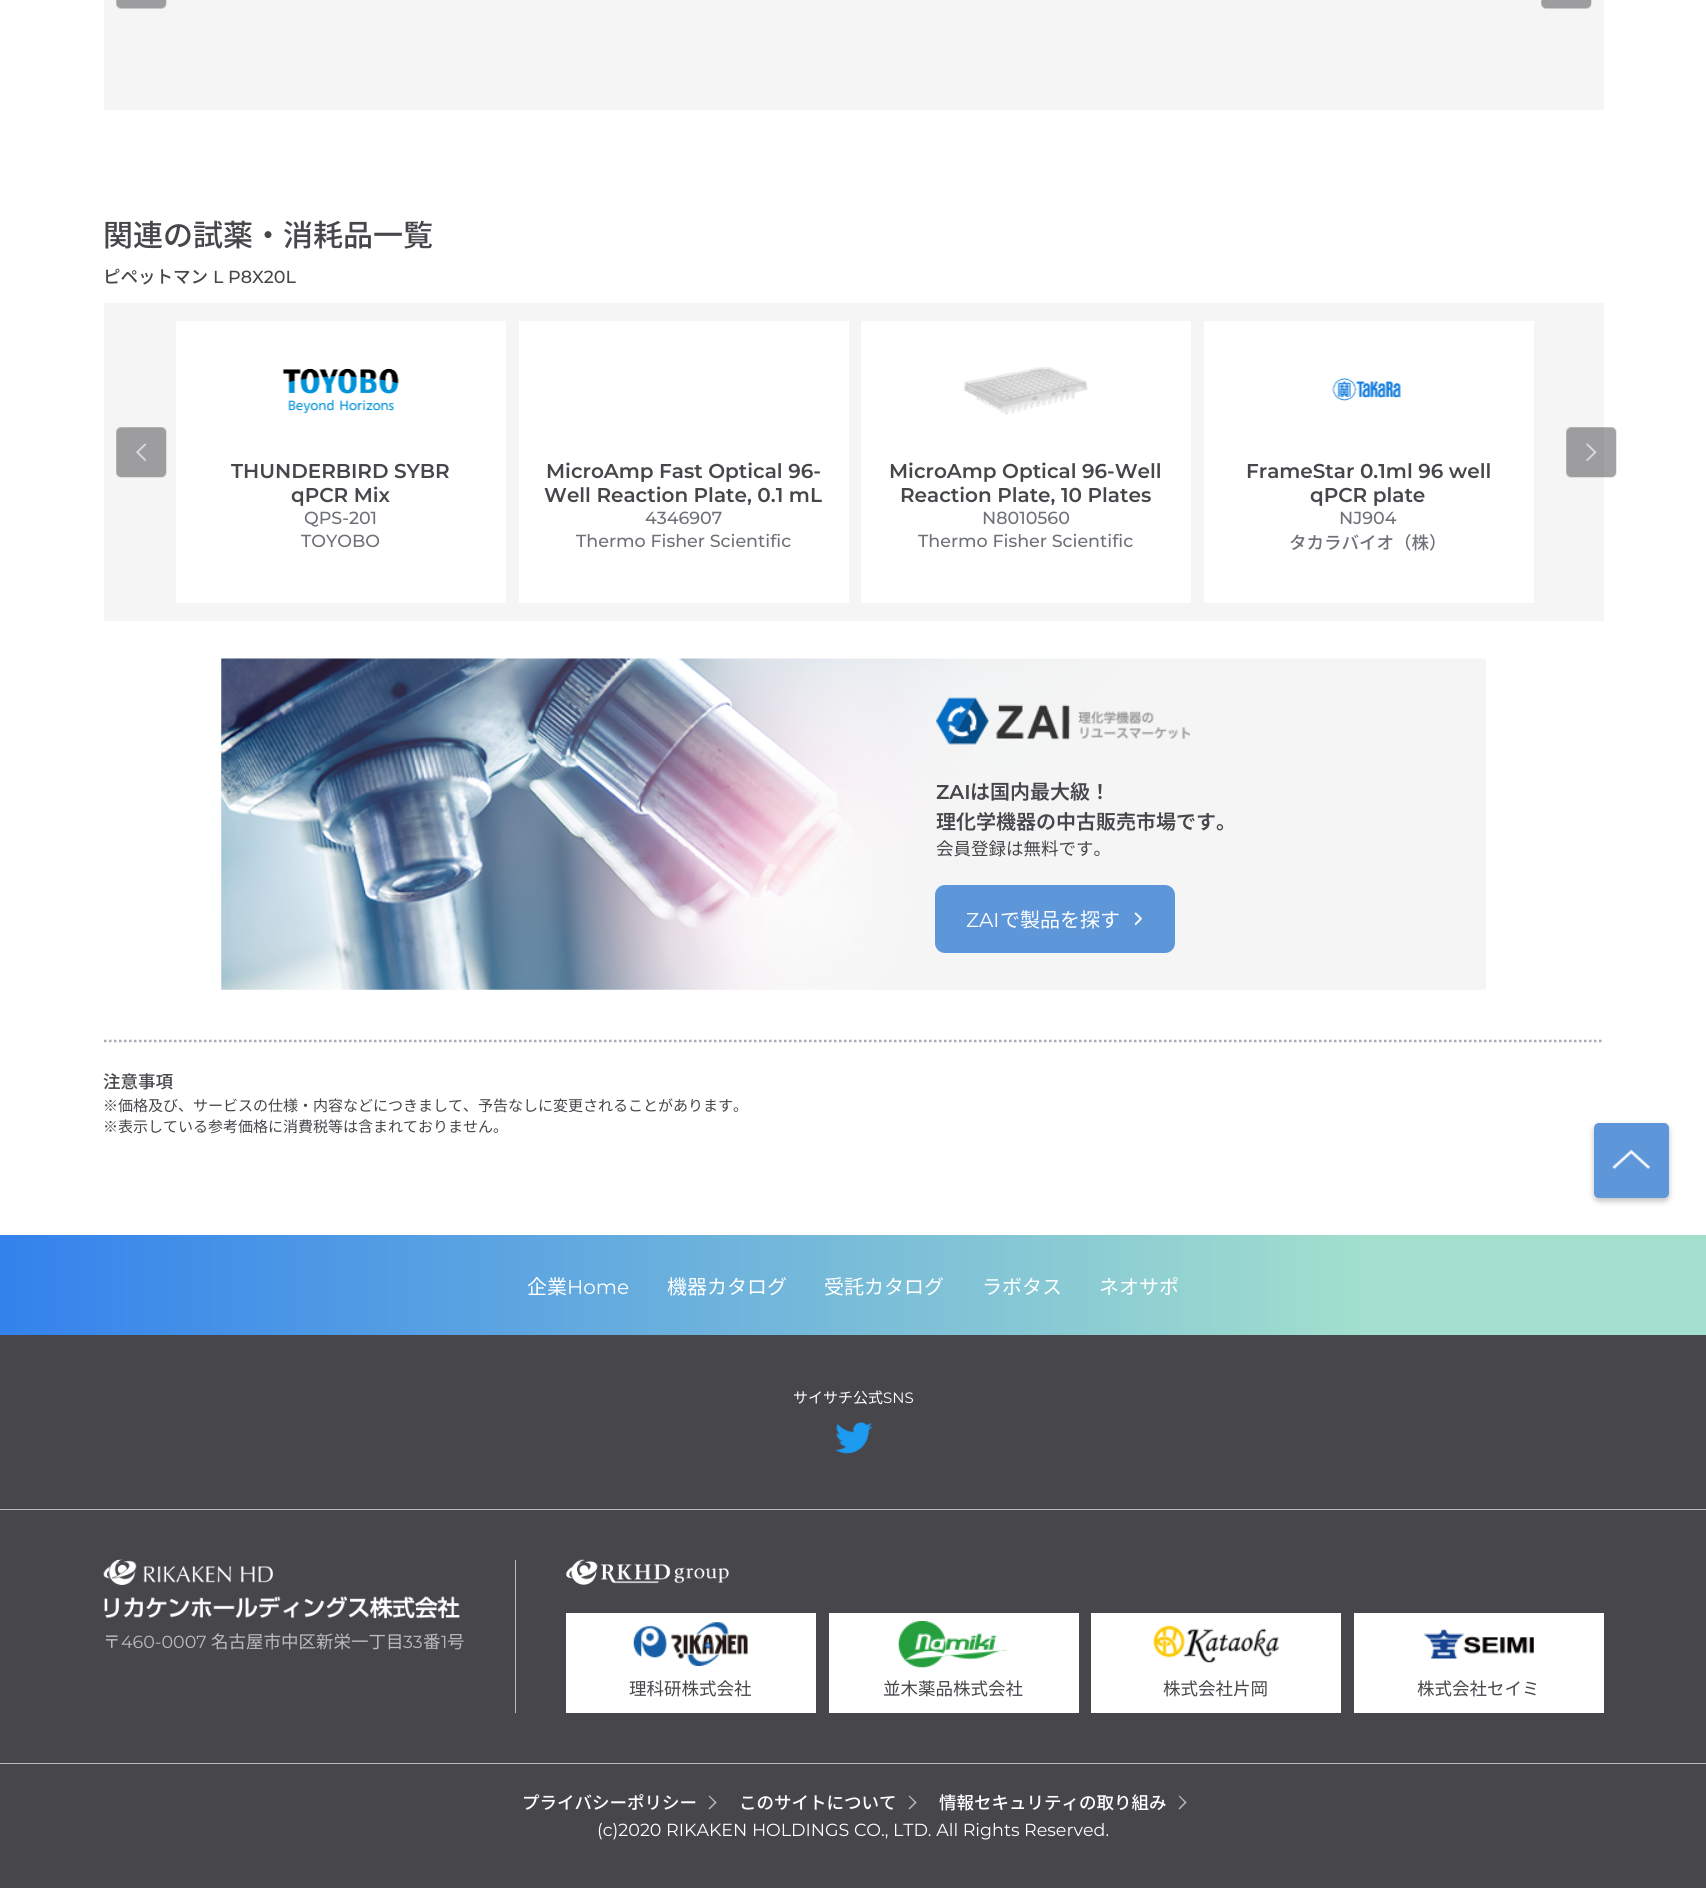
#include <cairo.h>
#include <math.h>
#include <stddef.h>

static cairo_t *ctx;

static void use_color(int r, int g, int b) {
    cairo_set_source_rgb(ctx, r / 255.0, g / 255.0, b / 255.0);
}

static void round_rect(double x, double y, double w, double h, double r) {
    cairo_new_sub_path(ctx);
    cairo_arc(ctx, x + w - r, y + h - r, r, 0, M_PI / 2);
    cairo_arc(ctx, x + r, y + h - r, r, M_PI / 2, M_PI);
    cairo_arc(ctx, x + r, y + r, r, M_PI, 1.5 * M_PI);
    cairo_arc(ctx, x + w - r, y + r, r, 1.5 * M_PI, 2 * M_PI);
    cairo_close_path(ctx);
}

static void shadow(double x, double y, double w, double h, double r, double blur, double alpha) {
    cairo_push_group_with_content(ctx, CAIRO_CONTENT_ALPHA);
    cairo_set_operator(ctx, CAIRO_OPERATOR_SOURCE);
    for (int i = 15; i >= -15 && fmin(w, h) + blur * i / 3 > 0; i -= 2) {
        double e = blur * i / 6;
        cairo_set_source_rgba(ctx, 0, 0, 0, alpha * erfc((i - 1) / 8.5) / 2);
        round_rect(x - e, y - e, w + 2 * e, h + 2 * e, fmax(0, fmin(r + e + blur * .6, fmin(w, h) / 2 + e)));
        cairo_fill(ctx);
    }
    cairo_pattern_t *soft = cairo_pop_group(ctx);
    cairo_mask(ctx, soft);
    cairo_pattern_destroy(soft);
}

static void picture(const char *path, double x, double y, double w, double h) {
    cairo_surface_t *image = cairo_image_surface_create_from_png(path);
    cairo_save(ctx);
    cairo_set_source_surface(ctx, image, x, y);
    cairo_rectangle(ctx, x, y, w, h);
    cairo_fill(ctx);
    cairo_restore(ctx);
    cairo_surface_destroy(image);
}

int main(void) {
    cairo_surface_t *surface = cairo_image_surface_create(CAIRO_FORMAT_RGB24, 1706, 1888);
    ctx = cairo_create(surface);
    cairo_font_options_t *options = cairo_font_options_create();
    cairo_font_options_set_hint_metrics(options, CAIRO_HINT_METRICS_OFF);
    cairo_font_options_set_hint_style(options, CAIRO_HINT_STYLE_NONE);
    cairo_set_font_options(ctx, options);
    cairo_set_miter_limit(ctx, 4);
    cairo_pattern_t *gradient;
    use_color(255, 255, 255);
    cairo_paint(ctx);
    use_color(245, 245, 245);
    cairo_rectangle(ctx, 104, 0, 1500, 110);
    cairo_fill(ctx);
    picture("img1.png", 116, 0, 51, 9);
    picture("img1.png", 1541, 0, 51, 9);
    cairo_select_font_face(ctx, "Noto Sans JP Medium", CAIRO_FONT_SLANT_NORMAL, CAIRO_FONT_WEIGHT_NORMAL);
    cairo_set_font_size(ctx, 30);
    use_color(70, 70, 75);
    cairo_move_to(ctx, 103, 246);
    cairo_show_text(ctx, "関連の試薬・消耗品一覧");
    cairo_set_font_size(ctx, 17.5);
    cairo_move_to(ctx, 103, 283);
    cairo_show_text(ctx, "ピペットマン");
    cairo_select_font_face(ctx, "Montserrat Medium", CAIRO_FONT_SLANT_NORMAL, CAIRO_FONT_WEIGHT_NORMAL);
    cairo_move_to(ctx, 213, 283);
    cairo_show_text(ctx, "L P8X20L");
    use_color(245, 245, 245);
    cairo_rectangle(ctx, 104, 303, 1500, 318);
    cairo_fill(ctx);
    picture("img2.png", 116, 427, 51, 51);
    picture("img3.png", 1566, 427, 51, 51);
    use_color(255, 255, 255);
    cairo_rectangle(ctx, 176, 321, 330, 282);
    cairo_fill(ctx);
    picture("img4.png", 282, 368, 117, 46);
    cairo_select_font_face(ctx, "Montserrat SemiBold", CAIRO_FONT_SLANT_NORMAL, CAIRO_FONT_WEIGHT_NORMAL);
    cairo_set_font_size(ctx, 20);
    use_color(70, 70, 75);
    cairo_move_to(ctx, 231, 478);
    cairo_show_text(ctx, "THUNDERBIRD SYBR");
    cairo_move_to(ctx, 291, 502);
    cairo_show_text(ctx, "qPCR Mix");
    cairo_select_font_face(ctx, "Montserrat Medium", CAIRO_FONT_SLANT_NORMAL, CAIRO_FONT_WEIGHT_NORMAL);
    cairo_set_font_size(ctx, 17.5);
    use_color(110, 113, 119);
    cairo_move_to(ctx, 304, 524);
    cairo_show_text(ctx, "QPS-201");
    cairo_move_to(ctx, 301, 547);
    cairo_show_text(ctx, "TOYOBO");
    use_color(255, 255, 255);
    cairo_rectangle(ctx, 519, 321, 330, 282);
    cairo_fill(ctx);
    cairo_select_font_face(ctx, "Montserrat SemiBold", CAIRO_FONT_SLANT_NORMAL, CAIRO_FONT_WEIGHT_NORMAL);
    cairo_set_font_size(ctx, 20);
    use_color(70, 70, 75);
    cairo_move_to(ctx, 546, 478);
    cairo_show_text(ctx, "MicroAmp Fast Optical 96-");
    cairo_move_to(ctx, 544, 502);
    cairo_show_text(ctx, "Well Reaction Plate, 0.1 mL");
    cairo_select_font_face(ctx, "Montserrat Medium", CAIRO_FONT_SLANT_NORMAL, CAIRO_FONT_WEIGHT_NORMAL);
    cairo_set_font_size(ctx, 17.5);
    use_color(110, 113, 119);
    cairo_move_to(ctx, 645, 524);
    cairo_show_text(ctx, "4346907");
    cairo_move_to(ctx, 576, 547);
    cairo_show_text(ctx, "Thermo Fisher Scientific");
    use_color(255, 255, 255);
    cairo_rectangle(ctx, 861, 321, 330, 282);
    cairo_fill(ctx);
    picture("img5.png", 963, 367, 125, 48);
    cairo_select_font_face(ctx, "Montserrat SemiBold", CAIRO_FONT_SLANT_NORMAL, CAIRO_FONT_WEIGHT_NORMAL);
    cairo_set_font_size(ctx, 20);
    use_color(70, 70, 75);
    cairo_move_to(ctx, 889, 478);
    cairo_show_text(ctx, "MicroAmp Optical 96-Well");
    cairo_move_to(ctx, 900, 502);
    cairo_show_text(ctx, "Reaction Plate, 10 Plates");
    cairo_select_font_face(ctx, "Montserrat Medium", CAIRO_FONT_SLANT_NORMAL, CAIRO_FONT_WEIGHT_NORMAL);
    cairo_set_font_size(ctx, 17.5);
    use_color(110, 113, 119);
    cairo_move_to(ctx, 982, 524);
    cairo_show_text(ctx, "N8010560");
    cairo_move_to(ctx, 918, 547);
    cairo_show_text(ctx, "Thermo Fisher Scientific");
    use_color(255, 255, 255);
    cairo_rectangle(ctx, 1204, 321, 330, 282);
    cairo_fill(ctx);
    picture("img6.png", 1332, 378, 69, 23);
    cairo_select_font_face(ctx, "Montserrat SemiBold", CAIRO_FONT_SLANT_NORMAL, CAIRO_FONT_WEIGHT_NORMAL);
    cairo_set_font_size(ctx, 20);
    use_color(70, 70, 75);
    cairo_move_to(ctx, 1246, 478);
    cairo_show_text(ctx, "FrameStar 0.1ml 96 well");
    cairo_move_to(ctx, 1310, 502);
    cairo_show_text(ctx, "qPCR plate");
    cairo_select_font_face(ctx, "Montserrat Medium", CAIRO_FONT_SLANT_NORMAL, CAIRO_FONT_WEIGHT_NORMAL);
    cairo_set_font_size(ctx, 17.5);
    use_color(110, 113, 119);
    cairo_move_to(ctx, 1339, 524);
    cairo_show_text(ctx, "NJ904");
    cairo_select_font_face(ctx, "Noto Sans JP Medium", CAIRO_FONT_SLANT_NORMAL, CAIRO_FONT_WEIGHT_NORMAL);
    cairo_move_to(ctx, 1289, 549);
    cairo_show_text(ctx, "タカラバイオ（株）");
    picture("img7.png", 221, 658, 1265, 332);
    picture("img8.png", 936, 697, 254, 48);
    cairo_select_font_face(ctx, "Montserrat SemiBold", CAIRO_FONT_SLANT_NORMAL, CAIRO_FONT_WEIGHT_NORMAL);
    cairo_set_font_size(ctx, 20);
    use_color(70, 70, 75);
    cairo_move_to(ctx, 936, 799);
    cairo_show_text(ctx, "ZAI");
    cairo_select_font_face(ctx, "Noto Sans JP SemiBold", CAIRO_FONT_SLANT_NORMAL, CAIRO_FONT_WEIGHT_NORMAL);
    cairo_move_to(ctx, 970, 799);
    cairo_show_text(ctx, "は国内最大級！");
    cairo_move_to(ctx, 936, 829);
    cairo_show_text(ctx, "理化学機器の中古販売市場です。");
    cairo_select_font_face(ctx, "Noto Sans JP", CAIRO_FONT_SLANT_NORMAL, CAIRO_FONT_WEIGHT_NORMAL);
    cairo_set_font_size(ctx, 17.5);
    cairo_move_to(ctx, 936, 855);
    cairo_show_text(ctx, "会員登録は無料です。");
    use_color(94, 151, 217);
    round_rect(935, 885, 240, 68, 10);
    cairo_fill(ctx);
    cairo_select_font_face(ctx, "Montserrat", CAIRO_FONT_SLANT_NORMAL, CAIRO_FONT_WEIGHT_NORMAL);
    cairo_set_font_size(ctx, 20);
    use_color(255, 255, 255);
    cairo_move_to(ctx, 966, 927);
    cairo_show_text(ctx, "ZAI");
    cairo_select_font_face(ctx, "Noto Sans JP", CAIRO_FONT_SLANT_NORMAL, CAIRO_FONT_WEIGHT_NORMAL);
    cairo_move_to(ctx, 1000, 927);
    cairo_show_text(ctx, "で製品を探す");
    picture("img9.png", 1134, 912, 8, 13);
    cairo_new_path(ctx);
    cairo_move_to(ctx, 104, 1041);
    cairo_line_to(ctx, 1604, 1041);
    use_color(170, 170, 180);
    cairo_set_line_width(ctx, 2.5);
    cairo_set_dash(ctx, (double[]){2.5, 2.5}, 2, 0);
    cairo_stroke(ctx);
    cairo_select_font_face(ctx, "Noto Sans JP Medium", CAIRO_FONT_SLANT_NORMAL, CAIRO_FONT_WEIGHT_NORMAL);
    cairo_set_font_size(ctx, 17.5);
    use_color(70, 70, 75);
    cairo_move_to(ctx, 103, 1088);
    cairo_show_text(ctx, "注意事項");
    cairo_select_font_face(ctx, "Noto Sans JP", CAIRO_FONT_SLANT_NORMAL, CAIRO_FONT_WEIGHT_NORMAL);
    cairo_set_font_size(ctx, 15);
    cairo_move_to(ctx, 103, 1111);
    cairo_show_text(ctx, "※価格及び、サービスの仕様・内容などにつきまして、予告なしに変更されることがあります。");
    cairo_move_to(ctx, 103, 1132);
    cairo_show_text(ctx, "※表示している参考価格に消費税等は含まれておりません。");
    use_color(0, 0, 0);
    shadow(1594, 1126, 75, 75, 5, 3, 0.25);
    use_color(94, 151, 217);
    round_rect(1594, 1123, 75, 75, 5);
    cairo_fill(ctx);
    picture("img10.png", 1612, 1149, 39, 21);
    use_color(70, 70, 75);
    cairo_rectangle(ctx, 0, 1335, 1706, 553);
    cairo_fill(ctx);
    gradient = cairo_pattern_create_linear(0, 1285, 1706, 1285);
    cairo_pattern_add_color_stop_rgba(gradient, 0, 0.2, 0.51, 0.929, 1);
    cairo_pattern_add_color_stop_rgba(gradient, 0.8, 0.635, 0.875, 0.804, 1);
    cairo_set_source(ctx, gradient);
    cairo_pattern_destroy(gradient);
    cairo_rectangle(ctx, 0, 1235, 1706, 100);
    cairo_fill(ctx);
    cairo_set_font_size(ctx, 20);
    use_color(255, 255, 255);
    cairo_move_to(ctx, 527, 1294);
    cairo_show_text(ctx, "企業");
    cairo_select_font_face(ctx, "Montserrat", CAIRO_FONT_SLANT_NORMAL, CAIRO_FONT_WEIGHT_NORMAL);
    cairo_move_to(ctx, 567, 1294);
    cairo_show_text(ctx, "Home");
    cairo_select_font_face(ctx, "Noto Sans JP", CAIRO_FONT_SLANT_NORMAL, CAIRO_FONT_WEIGHT_NORMAL);
    cairo_move_to(ctx, 667, 1294);
    cairo_show_text(ctx, "機器カタログ");
    cairo_move_to(ctx, 824, 1294);
    cairo_show_text(ctx, "受託カタログ");
    cairo_move_to(ctx, 982, 1294);
    cairo_show_text(ctx, "ラボタス");
    cairo_move_to(ctx, 1099, 1294);
    cairo_show_text(ctx, "ネオサポ");
    use_color(188, 188, 189);
    cairo_rectangle(ctx, 0, 1509, 1706, 1);
    cairo_fill(ctx);
    cairo_set_font_size(ctx, 15);
    use_color(255, 255, 255);
    cairo_move_to(ctx, 793, 1403);
    cairo_show_text(ctx, "サイサチ公式");
    cairo_select_font_face(ctx, "Montserrat", CAIRO_FONT_SLANT_NORMAL, CAIRO_FONT_WEIGHT_NORMAL);
    cairo_move_to(ctx, 883, 1403);
    cairo_show_text(ctx, "SNS");
    picture("img11.png", 835, 1422, 38, 32);
    use_color(188, 188, 189);
    cairo_rectangle(ctx, 0, 1763, 1706, 1);
    cairo_fill(ctx);
    picture("img12.png", 103, 1559, 357, 60);
    cairo_select_font_face(ctx, "Noto Sans JP", CAIRO_FONT_SLANT_NORMAL, CAIRO_FONT_WEIGHT_NORMAL);
    cairo_set_font_size(ctx, 17.5);
    cairo_move_to(ctx, 103, 1648);
    cairo_show_text(ctx, "〒");
    cairo_select_font_face(ctx, "Montserrat", CAIRO_FONT_SLANT_NORMAL, CAIRO_FONT_WEIGHT_NORMAL);
    cairo_move_to(ctx, 121, 1648);
    cairo_show_text(ctx, "460-0007");
    cairo_select_font_face(ctx, "Noto Sans JP", CAIRO_FONT_SLANT_NORMAL, CAIRO_FONT_WEIGHT_NORMAL);
    cairo_move_to(ctx, 211, 1648);
    cairo_show_text(ctx, "名古屋市中区新栄一丁目");
    cairo_select_font_face(ctx, "Montserrat", CAIRO_FONT_SLANT_NORMAL, CAIRO_FONT_WEIGHT_NORMAL);
    cairo_move_to(ctx, 403, 1648);
    cairo_show_text(ctx, "33");
    cairo_select_font_face(ctx, "Noto Sans JP", CAIRO_FONT_SLANT_NORMAL, CAIRO_FONT_WEIGHT_NORMAL);
    cairo_move_to(ctx, 423, 1648);
    cairo_show_text(ctx, "番");
    cairo_select_font_face(ctx, "Montserrat", CAIRO_FONT_SLANT_NORMAL, CAIRO_FONT_WEIGHT_NORMAL);
    cairo_move_to(ctx, 441, 1648);
    cairo_show_text(ctx, "1");
    cairo_select_font_face(ctx, "Noto Sans JP", CAIRO_FONT_SLANT_NORMAL, CAIRO_FONT_WEIGHT_NORMAL);
    cairo_move_to(ctx, 447, 1648);
    cairo_show_text(ctx, "号");
    cairo_rectangle(ctx, 515, 1560, 1, 153);
    cairo_fill(ctx);
    picture("img13.png", 566, 1559, 163, 26);
    use_color(255, 255, 255);
    cairo_rectangle(ctx, 566, 1613, 250, 100);
    cairo_fill(ctx);
    picture("img14.png", 633, 1622, 115, 44);
    use_color(70, 70, 75);
    cairo_move_to(ctx, 629, 1695);
    cairo_show_text(ctx, "理科研株式会社");
    use_color(255, 255, 255);
    cairo_rectangle(ctx, 829, 1613, 250, 100);
    cairo_fill(ctx);
    picture("img15.png", 898, 1621, 111, 47);
    use_color(70, 70, 75);
    cairo_move_to(ctx, 883, 1695);
    cairo_show_text(ctx, "並木薬品株式会社");
    use_color(255, 255, 255);
    cairo_rectangle(ctx, 1091, 1613, 250, 100);
    cairo_fill(ctx);
    picture("img16.png", 1153, 1626, 126, 37);
    use_color(70, 70, 75);
    cairo_move_to(ctx, 1163, 1695);
    cairo_show_text(ctx, "株式会社片岡");
    use_color(255, 255, 255);
    cairo_rectangle(ctx, 1354, 1613, 250, 100);
    cairo_fill(ctx);
    picture("img17.png", 1423, 1629, 111, 30);
    use_color(70, 70, 75);
    cairo_move_to(ctx, 1417, 1695);
    cairo_show_text(ctx, "株式会社セイミ");
    cairo_select_font_face(ctx, "Noto Sans JP Medium", CAIRO_FONT_SLANT_NORMAL, CAIRO_FONT_WEIGHT_NORMAL);
    use_color(255, 255, 255);
    cairo_move_to(ctx, 522, 1809);
    cairo_show_text(ctx, "プライバシーポリシー");
    use_color(188, 188, 189);
    cairo_new_path(ctx);
    cairo_move_to(ctx, 708.5, 1796);
    cairo_line_to(ctx, 709.5, 1795.5);
    cairo_line_to(ctx, 716.5, 1802.5);
    cairo_line_to(ctx, 715.5, 1803.5);
    cairo_close_path(ctx);
    cairo_fill(ctx);
    cairo_new_path(ctx);
    cairo_move_to(ctx, 708.5, 1808.5);
    cairo_line_to(ctx, 715.5, 1801.5);
    cairo_line_to(ctx, 716.5, 1802.5);
    cairo_line_to(ctx, 709.5, 1809.5);
    cairo_close_path(ctx);
    cairo_fill(ctx);
    use_color(255, 255, 255);
    cairo_move_to(ctx, 739, 1809);
    cairo_show_text(ctx, "このサイトについて");
    use_color(188, 188, 189);
    cairo_new_path(ctx);
    cairo_move_to(ctx, 908.5, 1796);
    cairo_line_to(ctx, 909.5, 1795.5);
    cairo_line_to(ctx, 916.5, 1802.5);
    cairo_line_to(ctx, 915.5, 1803.5);
    cairo_close_path(ctx);
    cairo_fill(ctx);
    cairo_new_path(ctx);
    cairo_move_to(ctx, 908.5, 1808.5);
    cairo_line_to(ctx, 915.5, 1801.5);
    cairo_line_to(ctx, 916.5, 1802.5);
    cairo_line_to(ctx, 909.5, 1809.5);
    cairo_close_path(ctx);
    cairo_fill(ctx);
    use_color(255, 255, 255);
    cairo_move_to(ctx, 939, 1809);
    cairo_show_text(ctx, "情報セキュリティの取り組み");
    use_color(188, 188, 189);
    cairo_new_path(ctx);
    cairo_move_to(ctx, 1178.5, 1796);
    cairo_line_to(ctx, 1179.5, 1795.5);
    cairo_line_to(ctx, 1186.5, 1802.5);
    cairo_line_to(ctx, 1185.5, 1803.5);
    cairo_close_path(ctx);
    cairo_fill(ctx);
    cairo_new_path(ctx);
    cairo_move_to(ctx, 1178.5, 1808.5);
    cairo_line_to(ctx, 1185.5, 1801.5);
    cairo_line_to(ctx, 1186.5, 1802.5);
    cairo_line_to(ctx, 1179.5, 1809.5);
    cairo_close_path(ctx);
    cairo_fill(ctx);
    cairo_select_font_face(ctx, "Montserrat", CAIRO_FONT_SLANT_NORMAL, CAIRO_FONT_WEIGHT_NORMAL);
    use_color(255, 255, 255);
    cairo_move_to(ctx, 597, 1836);
    cairo_show_text(ctx, "(c)2020 RIKAKEN HOLDINGS CO., LTD. All Rights Reserved.");
    cairo_surface_write_to_png(surface, "result.png");
    cairo_font_options_destroy(options);
    cairo_destroy(ctx);
    cairo_surface_destroy(surface);
    return 0;
}
